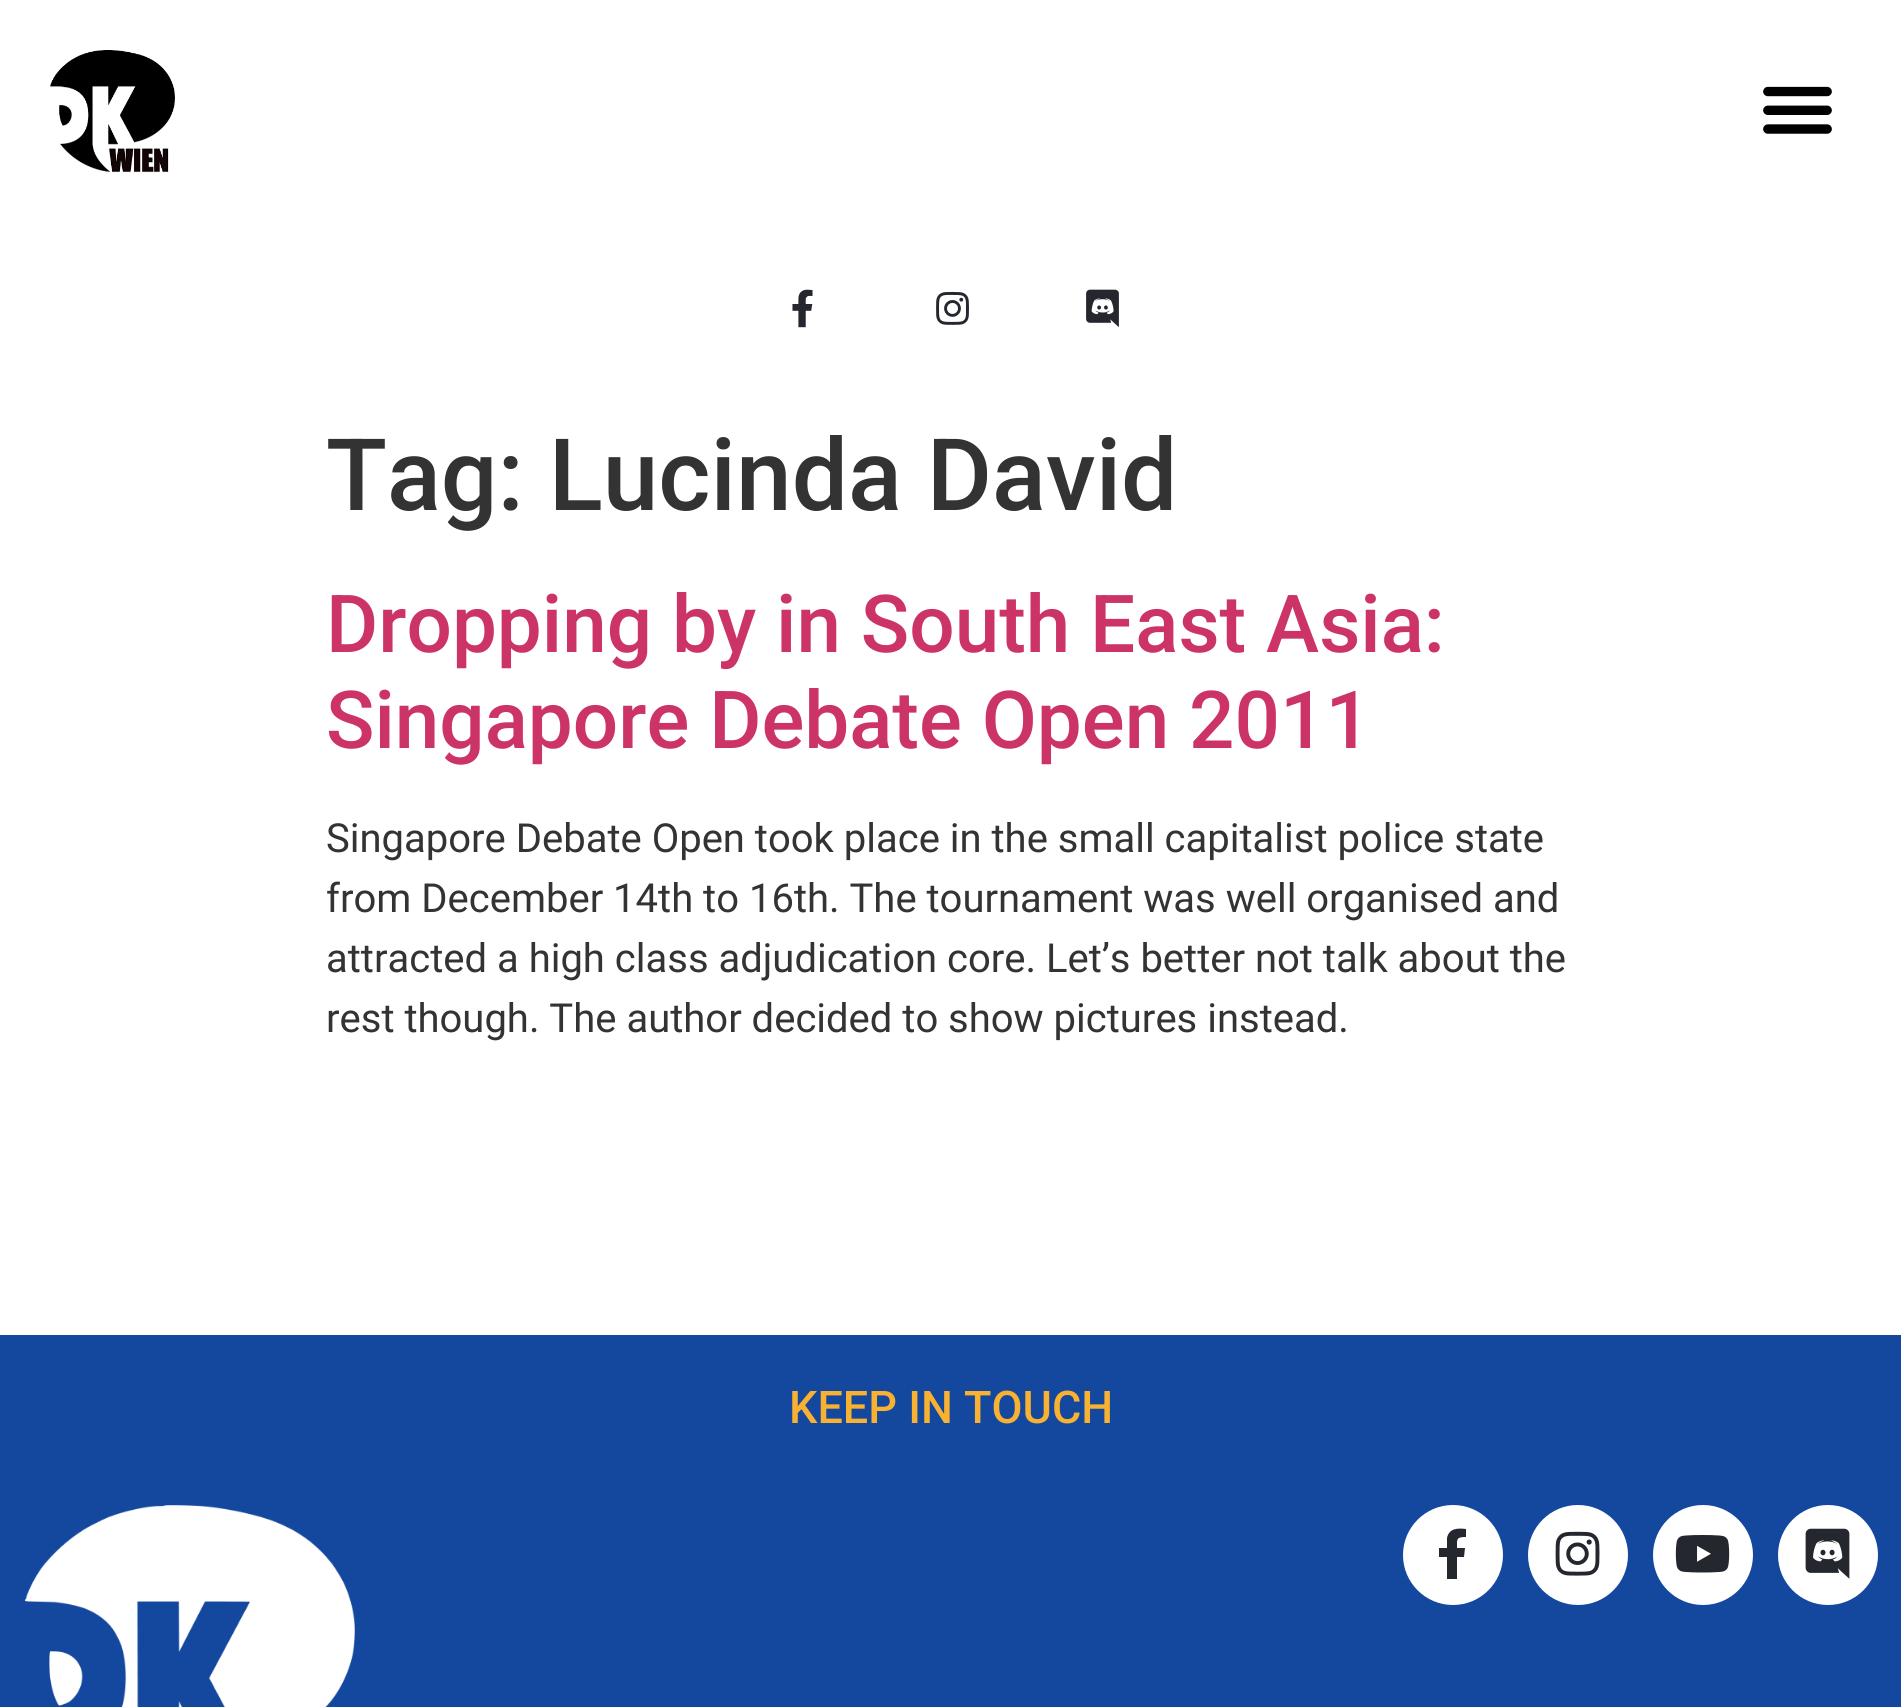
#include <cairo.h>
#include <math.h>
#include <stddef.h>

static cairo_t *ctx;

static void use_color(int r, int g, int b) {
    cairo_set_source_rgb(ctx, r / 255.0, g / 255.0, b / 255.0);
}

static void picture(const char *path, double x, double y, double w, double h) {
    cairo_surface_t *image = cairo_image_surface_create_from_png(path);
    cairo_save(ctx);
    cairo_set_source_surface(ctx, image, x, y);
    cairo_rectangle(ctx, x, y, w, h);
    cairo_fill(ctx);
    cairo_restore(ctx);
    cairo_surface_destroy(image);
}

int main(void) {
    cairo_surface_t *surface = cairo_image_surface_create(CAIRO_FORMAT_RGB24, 1901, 1707);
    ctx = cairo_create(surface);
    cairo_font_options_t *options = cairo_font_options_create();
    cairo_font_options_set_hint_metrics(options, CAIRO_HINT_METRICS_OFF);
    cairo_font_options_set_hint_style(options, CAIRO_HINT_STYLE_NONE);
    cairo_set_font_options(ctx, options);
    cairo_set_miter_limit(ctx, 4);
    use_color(255, 255, 255);
    cairo_paint(ctx);
    picture("img1.png", 50, 50, 125, 123);
    picture("img2.png", 1763, 86, 69, 48);
    picture("img3.png", 792, 289, 21, 39);
    picture("img4.png", 936, 291, 33, 34);
    picture("img5.png", 1086, 289, 33, 38);
    cairo_select_font_face(ctx, "Roboto Medium", CAIRO_FONT_SLANT_NORMAL, CAIRO_FONT_WEIGHT_NORMAL);
    cairo_set_font_size(ctx, 100);
    use_color(51, 51, 51);
    cairo_move_to(ctx, 326, 510);
    cairo_show_text(ctx, "Tag: Lucinda David");
    cairo_set_font_size(ctx, 80);
    use_color(204, 51, 102);
    cairo_move_to(ctx, 326, 652);
    cairo_show_text(ctx, "Dropping by in South East Asia:");
    cairo_move_to(ctx, 326, 748);
    cairo_show_text(ctx, "Singapore Debate Open 2011");
    cairo_select_font_face(ctx, "Roboto", CAIRO_FONT_SLANT_NORMAL, CAIRO_FONT_WEIGHT_NORMAL);
    cairo_set_font_size(ctx, 40);
    use_color(51, 51, 51);
    cairo_move_to(ctx, 326, 852);
    cairo_show_text(ctx, "Singapore Debate Open took place in the small capitalist police state");
    cairo_move_to(ctx, 326, 912);
    cairo_show_text(ctx, "from December 14th to 16th. The tournament was well organised and");
    cairo_move_to(ctx, 326, 972);
    cairo_show_text(ctx, "attracted a high class adjudication core. Let’s better not talk about the");
    cairo_move_to(ctx, 326, 1032);
    cairo_show_text(ctx, "rest though. The author decided to show pictures instead.");
    use_color(20, 72, 158);
    cairo_rectangle(ctx, 0, 1335, 1901, 372);
    cairo_fill(ctx);
    cairo_select_font_face(ctx, "Roboto Medium", CAIRO_FONT_SLANT_NORMAL, CAIRO_FONT_WEIGHT_NORMAL);
    cairo_set_font_size(ctx, 45);
    use_color(248, 177, 49);
    cairo_move_to(ctx, 789, 1423);
    cairo_show_text(ctx, "KEEP IN TOUCH");
    picture("img6.png", 25, 1505, 330, 202);
    use_color(255, 255, 255);
    cairo_arc(ctx, 1453, 1555, 50, 0, 2 * M_PI);
    cairo_fill(ctx);
    use_color(36, 39, 46);
    cairo_new_path(ctx);
    cairo_move_to(ctx, 1464, 1557);
    cairo_line_to(ctx, 1457, 1557);
    cairo_line_to(ctx, 1457, 1579);
    cairo_line_to(ctx, 1447, 1579);
    cairo_line_to(ctx, 1447, 1557);
    cairo_line_to(ctx, 1439, 1557);
    cairo_line_to(ctx, 1439, 1548);
    cairo_line_to(ctx, 1447, 1548);
    cairo_line_to(ctx, 1447, 1538);
    cairo_curve_to(ctx, 1449, 1528, 1458, 1528, 1466, 1529);
    cairo_line_to(ctx, 1466, 1537);
    cairo_curve_to(ctx, 1456, 1537, 1457, 1539, 1457, 1548);
    cairo_line_to(ctx, 1465, 1548);
    cairo_close_path(ctx);
    cairo_fill(ctx);
    use_color(255, 255, 255);
    cairo_arc(ctx, 1578, 1555, 50, 0, 2 * M_PI);
    cairo_fill(ctx);
    picture("img7.png", 1555, 1531, 45, 45);
    cairo_arc(ctx, 1703, 1555, 50, 0, 2 * M_PI);
    cairo_fill(ctx);
    picture("img8.png", 1675, 1535, 55, 38);
    cairo_arc(ctx, 1828, 1555, 50, 0, 2 * M_PI);
    cairo_fill(ctx);
    picture("img9.png", 1805, 1528, 45, 51);
    cairo_surface_write_to_png(surface, "result.png");
    cairo_font_options_destroy(options);
    cairo_destroy(ctx);
    cairo_surface_destroy(surface);
    return 0;
}
